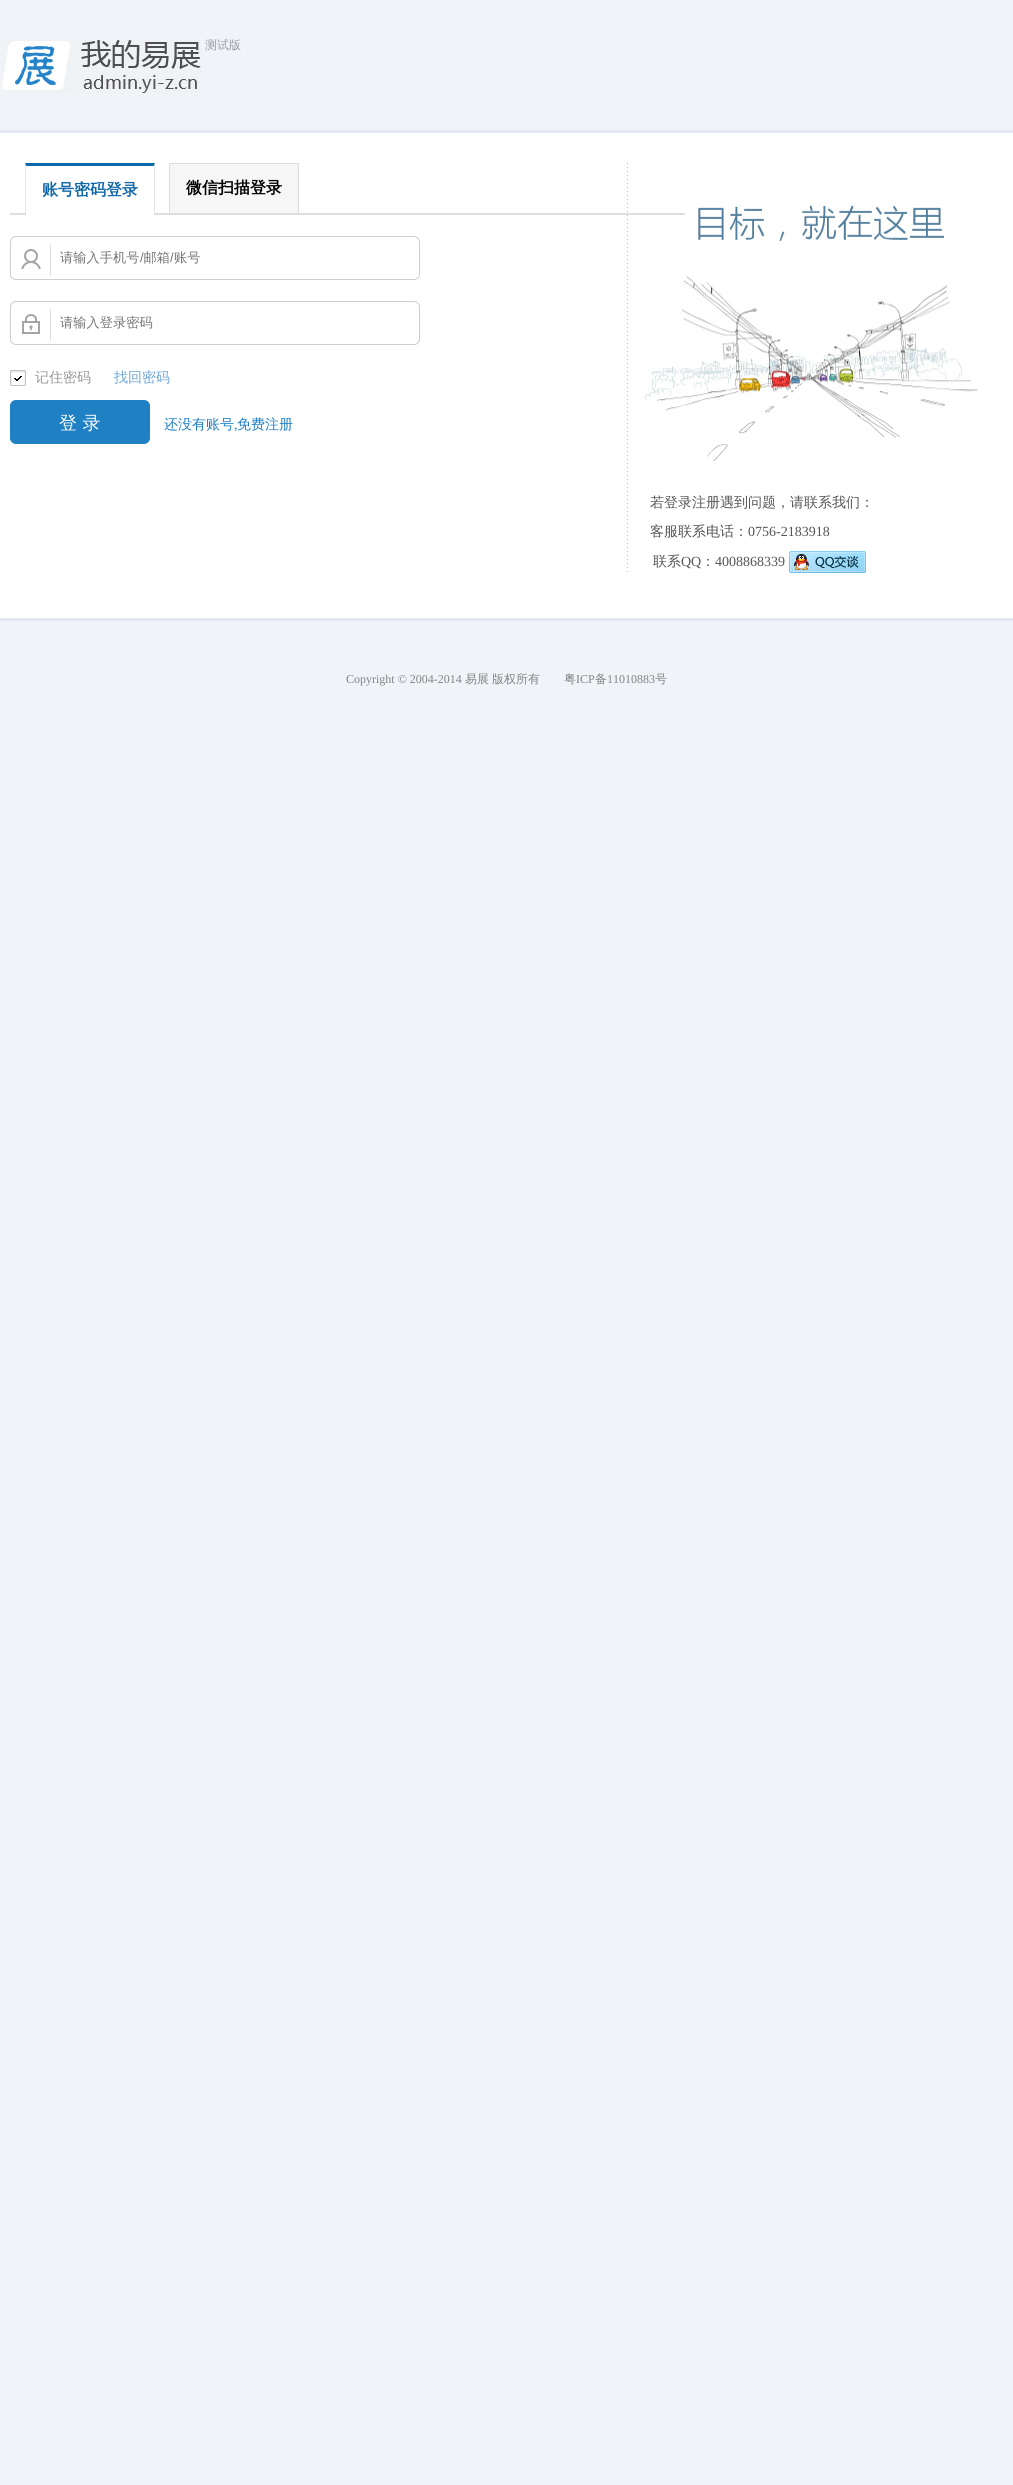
#include <cairo.h>
#include <math.h>
#include <stddef.h>

static cairo_t *ctx;

static void use_color(int r, int g, int b) {
    cairo_set_source_rgb(ctx, r / 255.0, g / 255.0, b / 255.0);
}

static void round_rect(double x, double y, double w, double h, double r) {
    cairo_new_sub_path(ctx);
    cairo_arc(ctx, x + w - r, y + h - r, r, 0, M_PI / 2);
    cairo_arc(ctx, x + r, y + h - r, r, M_PI / 2, M_PI);
    cairo_arc(ctx, x + r, y + r, r, M_PI, 1.5 * M_PI);
    cairo_arc(ctx, x + w - r, y + r, r, 1.5 * M_PI, 2 * M_PI);
    cairo_close_path(ctx);
}

static void picture(const char *path, double x, double y, double w, double h) {
    cairo_surface_t *image = cairo_image_surface_create_from_png(path);
    cairo_save(ctx);
    cairo_set_source_surface(ctx, image, x, y);
    cairo_rectangle(ctx, x, y, w, h);
    cairo_fill(ctx);
    cairo_restore(ctx);
    cairo_surface_destroy(image);
}

int main(void) {
    cairo_surface_t *surface = cairo_image_surface_create(CAIRO_FORMAT_RGB24, 1013, 2485);
    ctx = cairo_create(surface);
    cairo_font_options_t *options = cairo_font_options_create();
    cairo_font_options_set_hint_metrics(options, CAIRO_HINT_METRICS_OFF);
    cairo_font_options_set_hint_style(options, CAIRO_HINT_STYLE_NONE);
    cairo_set_font_options(ctx, options);
    cairo_set_miter_limit(ctx, 4);
    use_color(240, 243, 248);
    cairo_paint(ctx);
    picture("img1.png", 2, 40, 199, 53);
    cairo_select_font_face(ctx, "WenQuanYi Zen Hei Medium", CAIRO_FONT_SLANT_NORMAL, CAIRO_FONT_WEIGHT_NORMAL);
    cairo_set_font_size(ctx, 12);
    use_color(155, 156, 160);
    cairo_move_to(ctx, 205, 49);
    cairo_show_text(ctx, "测试版");
    use_color(255, 255, 255);
    cairo_rectangle(ctx, 0, 133, 1013, 485);
    cairo_fill(ctx);
    use_color(225, 232, 240);
    cairo_rectangle(ctx, 0, 130, 1013, 3);
    cairo_fill(ctx);
    cairo_rectangle(ctx, 0, 618, 1013, 3);
    cairo_fill(ctx);
    picture("img5.png", 627, 163, 1, 409);
    picture("img6.png", 645, 205, 333, 256);
    use_color(222, 222, 222);
    cairo_rectangle(ctx, 10, 213, 675, 2);
    cairo_fill(ctx);
    use_color(255, 255, 255);
    cairo_rectangle(ctx, 26, 213, 128, 2);
    cairo_fill(ctx);
    use_color(12, 105, 169);
    cairo_new_path(ctx);
    cairo_move_to(ctx, 25, 163);
    cairo_line_to(ctx, 155, 163);
    cairo_line_to(ctx, 154, 166);
    cairo_line_to(ctx, 26, 166);
    cairo_close_path(ctx);
    cairo_fill(ctx);
    use_color(229, 229, 229);
    cairo_new_path(ctx);
    cairo_move_to(ctx, 155, 163);
    cairo_line_to(ctx, 155, 216);
    cairo_line_to(ctx, 154, 215);
    cairo_line_to(ctx, 154, 166);
    cairo_close_path(ctx);
    cairo_fill(ctx);
    use_color(255, 255, 255);
    cairo_rectangle(ctx, 154, 215, 1, 1);
    cairo_fill(ctx);
    use_color(229, 229, 229);
    cairo_new_path(ctx);
    cairo_move_to(ctx, 25, 216);
    cairo_line_to(ctx, 25, 163);
    cairo_line_to(ctx, 26, 166);
    cairo_line_to(ctx, 26, 215);
    cairo_close_path(ctx);
    cairo_fill(ctx);
    cairo_select_font_face(ctx, "WenQuanYi Zen Hei", CAIRO_FONT_SLANT_NORMAL, CAIRO_FONT_WEIGHT_BOLD);
    cairo_set_font_size(ctx, 16);
    use_color(16, 104, 170);
    cairo_move_to(ctx, 42, 195);
    cairo_show_text(ctx, "账号密码登录");
    use_color(246, 246, 246);
    cairo_rectangle(ctx, 169.5, 163.5, 129, 50);
    cairo_fill_preserve(ctx);
    use_color(221, 221, 221);
    cairo_set_line_width(ctx, 1);
    cairo_stroke(ctx);
    use_color(0, 0, 0);
    cairo_move_to(ctx, 186, 193);
    cairo_show_text(ctx, "微信扫描登录");
    round_rect(10.5, 236.5, 409, 43, 5.5);
    use_color(205, 205, 205);
    cairo_stroke(ctx);
    use_color(222, 222, 222);
    cairo_rectangle(ctx, 50, 244, 1, 32);
    cairo_fill(ctx);
    picture("img2.png", 21, 249, 20, 20);
    cairo_select_font_face(ctx, "WenQuanYi Zen Hei Medium", CAIRO_FONT_SLANT_NORMAL, CAIRO_FONT_WEIGHT_NORMAL);
    cairo_set_font_size(ctx, 13.25);
    use_color(117, 117, 117);
    cairo_move_to(ctx, 60, 262);
    cairo_show_text(ctx, "请输入手机号 邮箱");
    cairo_select_font_face(ctx, "Liberation Sans", CAIRO_FONT_SLANT_NORMAL, CAIRO_FONT_WEIGHT_NORMAL);
    cairo_move_to(ctx, 170, 262);
    cairo_show_text(ctx, "/");
    cairo_select_font_face(ctx, "WenQuanYi Zen Hei Medium", CAIRO_FONT_SLANT_NORMAL, CAIRO_FONT_WEIGHT_NORMAL);
    cairo_move_to(ctx, 174, 262);
    cairo_show_text(ctx, "账号");
    cairo_select_font_face(ctx, "Liberation Sans", CAIRO_FONT_SLANT_NORMAL, CAIRO_FONT_WEIGHT_NORMAL);
    cairo_move_to(ctx, 140, 262);
    cairo_show_text(ctx, "/");
    round_rect(10.5, 301.5, 409, 43, 5.5);
    use_color(205, 205, 205);
    cairo_stroke(ctx);
    use_color(222, 222, 222);
    cairo_rectangle(ctx, 50, 309, 1, 32);
    cairo_fill(ctx);
    picture("img3.png", 22, 314, 18, 20);
    cairo_select_font_face(ctx, "WenQuanYi Zen Hei Medium", CAIRO_FONT_SLANT_NORMAL, CAIRO_FONT_WEIGHT_NORMAL);
    use_color(117, 117, 117);
    cairo_move_to(ctx, 60, 327);
    cairo_show_text(ctx, "请输入登录密码");
    picture("img4.png", 10, 370, 16, 16);
    cairo_set_font_size(ctx, 14);
    use_color(152, 152, 152);
    cairo_move_to(ctx, 35, 382);
    cairo_show_text(ctx, "记住密码");
    use_color(110, 166, 213);
    cairo_move_to(ctx, 114, 382);
    cairo_show_text(ctx, "找回密码");
    use_color(31, 128, 196);
    round_rect(10.5, 400.5, 139, 43, 5.5);
    cairo_fill_preserve(ctx);
    cairo_stroke(ctx);
    cairo_set_font_size(ctx, 18);
    use_color(255, 255, 255);
    cairo_move_to(ctx, 59, 429);
    cairo_show_text(ctx, "登 录");
    cairo_set_font_size(ctx, 14);
    use_color(31, 128, 196);
    cairo_move_to(ctx, 164, 429);
    cairo_show_text(ctx, "还没有账号");
    cairo_select_font_face(ctx, "Liberation Serif", CAIRO_FONT_SLANT_NORMAL, CAIRO_FONT_WEIGHT_NORMAL);
    cairo_move_to(ctx, 234, 429);
    cairo_show_text(ctx, ",");
    cairo_select_font_face(ctx, "WenQuanYi Zen Hei Medium", CAIRO_FONT_SLANT_NORMAL, CAIRO_FONT_WEIGHT_NORMAL);
    cairo_move_to(ctx, 237, 429);
    cairo_show_text(ctx, "免费注册");
    use_color(85, 85, 85);
    cairo_move_to(ctx, 650, 507);
    cairo_show_text(ctx, "若登录注册遇到问题，请联系我们：");
    cairo_move_to(ctx, 650, 536);
    cairo_show_text(ctx, "客服联系电话：");
    cairo_select_font_face(ctx, "Liberation Serif", CAIRO_FONT_SLANT_NORMAL, CAIRO_FONT_WEIGHT_NORMAL);
    cairo_move_to(ctx, 748, 536);
    cairo_show_text(ctx, "0756-2183918");
    cairo_select_font_face(ctx, "WenQuanYi Zen Hei Medium", CAIRO_FONT_SLANT_NORMAL, CAIRO_FONT_WEIGHT_NORMAL);
    cairo_move_to(ctx, 653, 566);
    cairo_show_text(ctx, "联系");
    cairo_select_font_face(ctx, "Liberation Serif", CAIRO_FONT_SLANT_NORMAL, CAIRO_FONT_WEIGHT_NORMAL);
    cairo_move_to(ctx, 681, 566);
    cairo_show_text(ctx, "QQ");
    cairo_select_font_face(ctx, "WenQuanYi Zen Hei Medium", CAIRO_FONT_SLANT_NORMAL, CAIRO_FONT_WEIGHT_NORMAL);
    cairo_move_to(ctx, 701, 566);
    cairo_show_text(ctx, "：");
    cairo_select_font_face(ctx, "Liberation Serif", CAIRO_FONT_SLANT_NORMAL, CAIRO_FONT_WEIGHT_NORMAL);
    cairo_move_to(ctx, 715, 566);
    cairo_show_text(ctx, "4008868339");
    picture("img7.png", 789, 551, 77, 22);
    cairo_set_font_size(ctx, 12);
    use_color(131, 131, 131);
    cairo_move_to(ctx, 346, 683);
    cairo_show_text(ctx, "Copyright © 2004-2014");
    cairo_select_font_face(ctx, "WenQuanYi Zen Hei Medium", CAIRO_FONT_SLANT_NORMAL, CAIRO_FONT_WEIGHT_NORMAL);
    cairo_move_to(ctx, 465, 683);
    cairo_show_text(ctx, "易展");
    cairo_move_to(ctx, 492, 683);
    cairo_show_text(ctx, "版权所有");
    cairo_move_to(ctx, 564, 683);
    cairo_show_text(ctx, "粤");
    cairo_select_font_face(ctx, "Liberation Serif", CAIRO_FONT_SLANT_NORMAL, CAIRO_FONT_WEIGHT_NORMAL);
    cairo_move_to(ctx, 576, 683);
    cairo_show_text(ctx, "ICP");
    cairo_select_font_face(ctx, "WenQuanYi Zen Hei Medium", CAIRO_FONT_SLANT_NORMAL, CAIRO_FONT_WEIGHT_NORMAL);
    cairo_move_to(ctx, 595, 683);
    cairo_show_text(ctx, "备");
    cairo_select_font_face(ctx, "Liberation Serif", CAIRO_FONT_SLANT_NORMAL, CAIRO_FONT_WEIGHT_NORMAL);
    cairo_move_to(ctx, 607, 683);
    cairo_show_text(ctx, "11010883");
    cairo_select_font_face(ctx, "WenQuanYi Zen Hei Medium", CAIRO_FONT_SLANT_NORMAL, CAIRO_FONT_WEIGHT_NORMAL);
    cairo_move_to(ctx, 655, 683);
    cairo_show_text(ctx, "号");
    cairo_surface_write_to_png(surface, "result.png");
    cairo_font_options_destroy(options);
    cairo_destroy(ctx);
    cairo_surface_destroy(surface);
    return 0;
}
